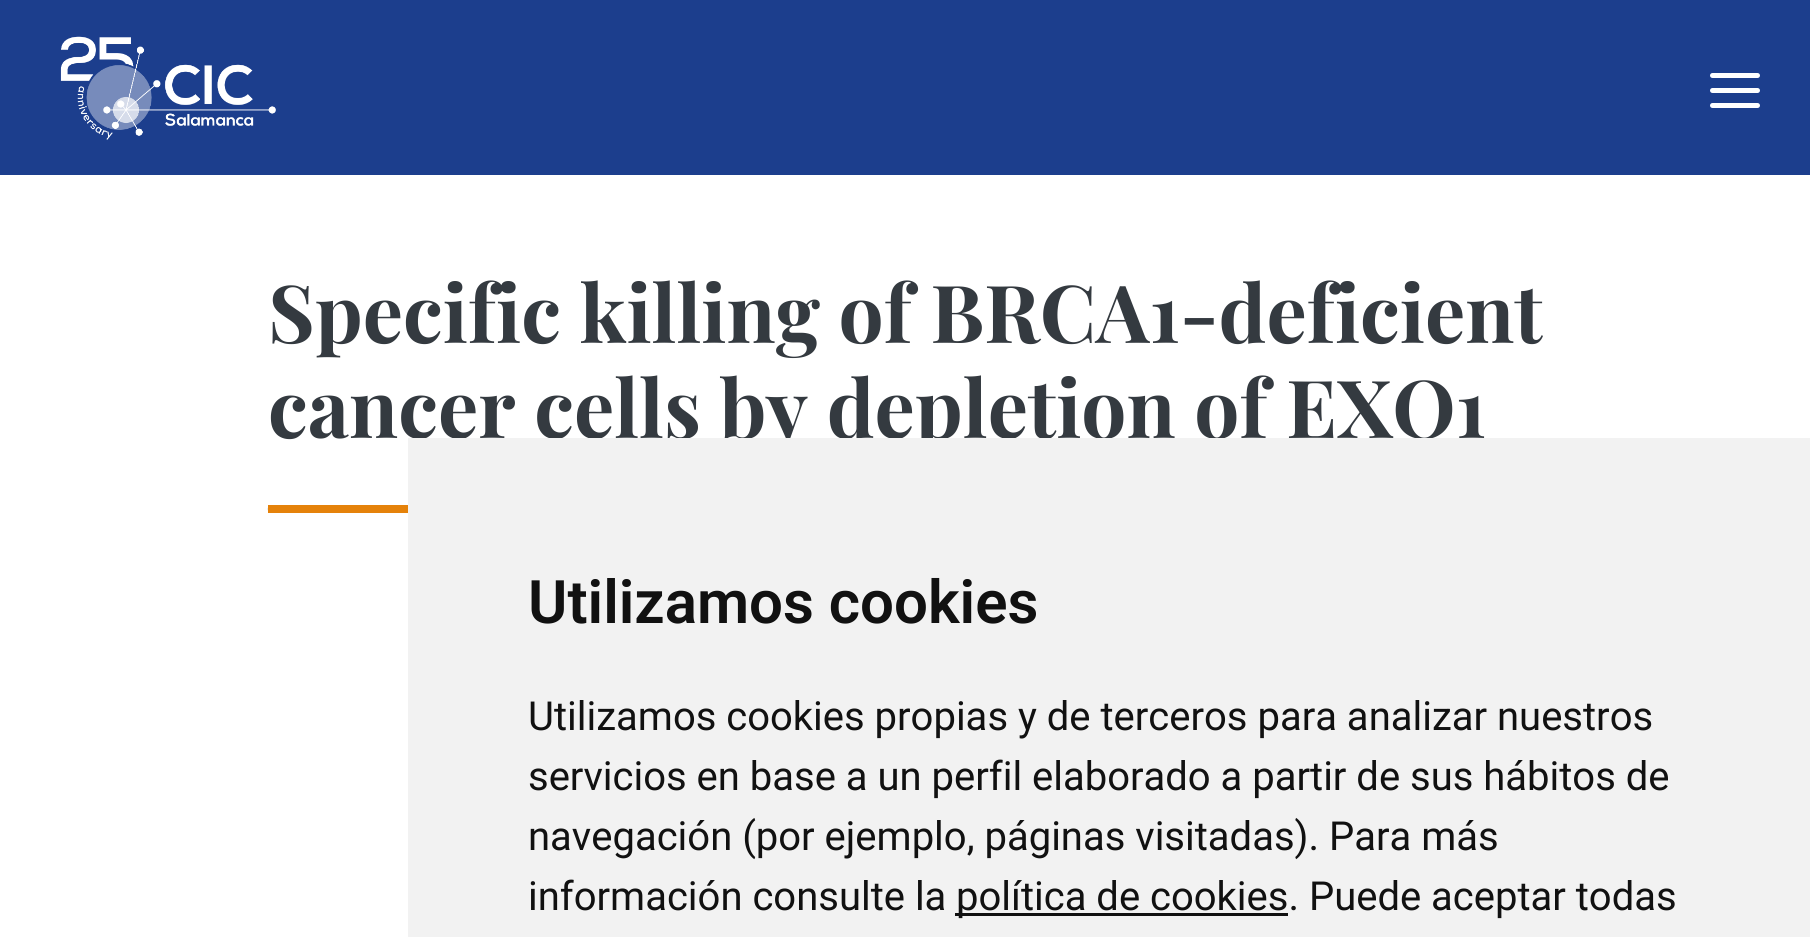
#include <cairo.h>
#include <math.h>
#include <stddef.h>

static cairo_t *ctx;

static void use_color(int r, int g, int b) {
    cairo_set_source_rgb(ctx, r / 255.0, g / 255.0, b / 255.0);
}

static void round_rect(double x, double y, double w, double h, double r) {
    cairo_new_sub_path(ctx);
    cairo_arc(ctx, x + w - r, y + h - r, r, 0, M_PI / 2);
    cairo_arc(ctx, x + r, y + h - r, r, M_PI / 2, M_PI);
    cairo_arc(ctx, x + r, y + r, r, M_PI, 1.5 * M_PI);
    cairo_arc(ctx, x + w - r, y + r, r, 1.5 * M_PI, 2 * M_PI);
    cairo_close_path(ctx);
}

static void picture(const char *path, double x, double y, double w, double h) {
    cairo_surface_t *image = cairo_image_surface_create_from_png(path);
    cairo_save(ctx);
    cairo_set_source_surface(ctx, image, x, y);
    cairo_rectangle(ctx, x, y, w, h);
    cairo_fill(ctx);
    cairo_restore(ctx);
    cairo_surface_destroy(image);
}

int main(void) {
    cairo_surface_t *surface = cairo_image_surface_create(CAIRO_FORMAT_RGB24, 1810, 937);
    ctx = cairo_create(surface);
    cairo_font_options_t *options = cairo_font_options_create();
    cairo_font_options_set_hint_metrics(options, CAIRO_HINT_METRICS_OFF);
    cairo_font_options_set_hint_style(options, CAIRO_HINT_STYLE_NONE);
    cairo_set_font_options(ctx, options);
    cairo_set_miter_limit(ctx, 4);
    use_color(255, 255, 255);
    cairo_paint(ctx);
    use_color(28, 62, 141);
    cairo_rectangle(ctx, 0, 0, 1810, 175);
    cairo_fill(ctx);
    picture("img1.png", 60, 36, 216, 104);
    use_color(255, 255, 255);
    round_rect(1710, 103, 50, 5, 2.5);
    cairo_fill(ctx);
    round_rect(1710, 73, 50, 5, 2.5);
    cairo_fill(ctx);
    round_rect(1710, 88, 50, 5, 2.5);
    cairo_fill(ctx);
    cairo_select_font_face(ctx, "Playfair Display", CAIRO_FONT_SLANT_NORMAL, CAIRO_FONT_WEIGHT_BOLD);
    cairo_set_font_size(ctx, 80);
    use_color(52, 58, 64);
    cairo_move_to(ctx, 268, 343);
    cairo_show_text(ctx, "Specific killing of BRCA1-deficient");
    cairo_move_to(ctx, 268, 438);
    cairo_show_text(ctx, "cancer cells by depletion of EXO1");
    cairo_new_path(ctx);
    cairo_move_to(ctx, 267.5, 509);
    cairo_line_to(ctx, 1542.5, 509);
    use_color(222, 222, 222);
    cairo_set_line_width(ctx, 2.5);
    cairo_set_dash(ctx, (double[]){2.5, 2.5}, 2, 0);
    cairo_stroke(ctx);
    use_color(229, 130, 10);
    cairo_rectangle(ctx, 268, 505, 140, 8);
    cairo_fill(ctx);
    use_color(242, 242, 242);
    cairo_rectangle(ctx, 408, 438, 1402, 499);
    cairo_fill(ctx);
    cairo_select_font_face(ctx, "Roboto SemiBold", CAIRO_FONT_SLANT_NORMAL, CAIRO_FONT_WEIGHT_NORMAL);
    cairo_set_font_size(ctx, 60);
    use_color(17, 17, 17);
    cairo_move_to(ctx, 528, 623);
    cairo_show_text(ctx, "Utilizamos cookies");
    cairo_select_font_face(ctx, "Roboto", CAIRO_FONT_SLANT_NORMAL, CAIRO_FONT_WEIGHT_NORMAL);
    cairo_set_font_size(ctx, 40);
    cairo_move_to(ctx, 528, 730);
    cairo_show_text(ctx, "Utilizamos cookies propias y de terceros para analizar nuestros");
    cairo_move_to(ctx, 528, 790);
    cairo_show_text(ctx, "servicios en base a un perfil elaborado a partir de sus hábitos de");
    cairo_move_to(ctx, 528, 850);
    cairo_show_text(ctx, "navegación (por ejemplo, páginas visitadas). Para más");
    cairo_move_to(ctx, 528, 910);
    cairo_show_text(ctx, "información consulte la");
    cairo_rectangle(ctx, 955, 913, 333, 3);
    cairo_fill(ctx);
    cairo_move_to(ctx, 956, 910);
    cairo_show_text(ctx, "política de cookies. Puede aceptar todas");
    cairo_surface_write_to_png(surface, "result.png");
    cairo_font_options_destroy(options);
    cairo_destroy(ctx);
    cairo_surface_destroy(surface);
    return 0;
}
